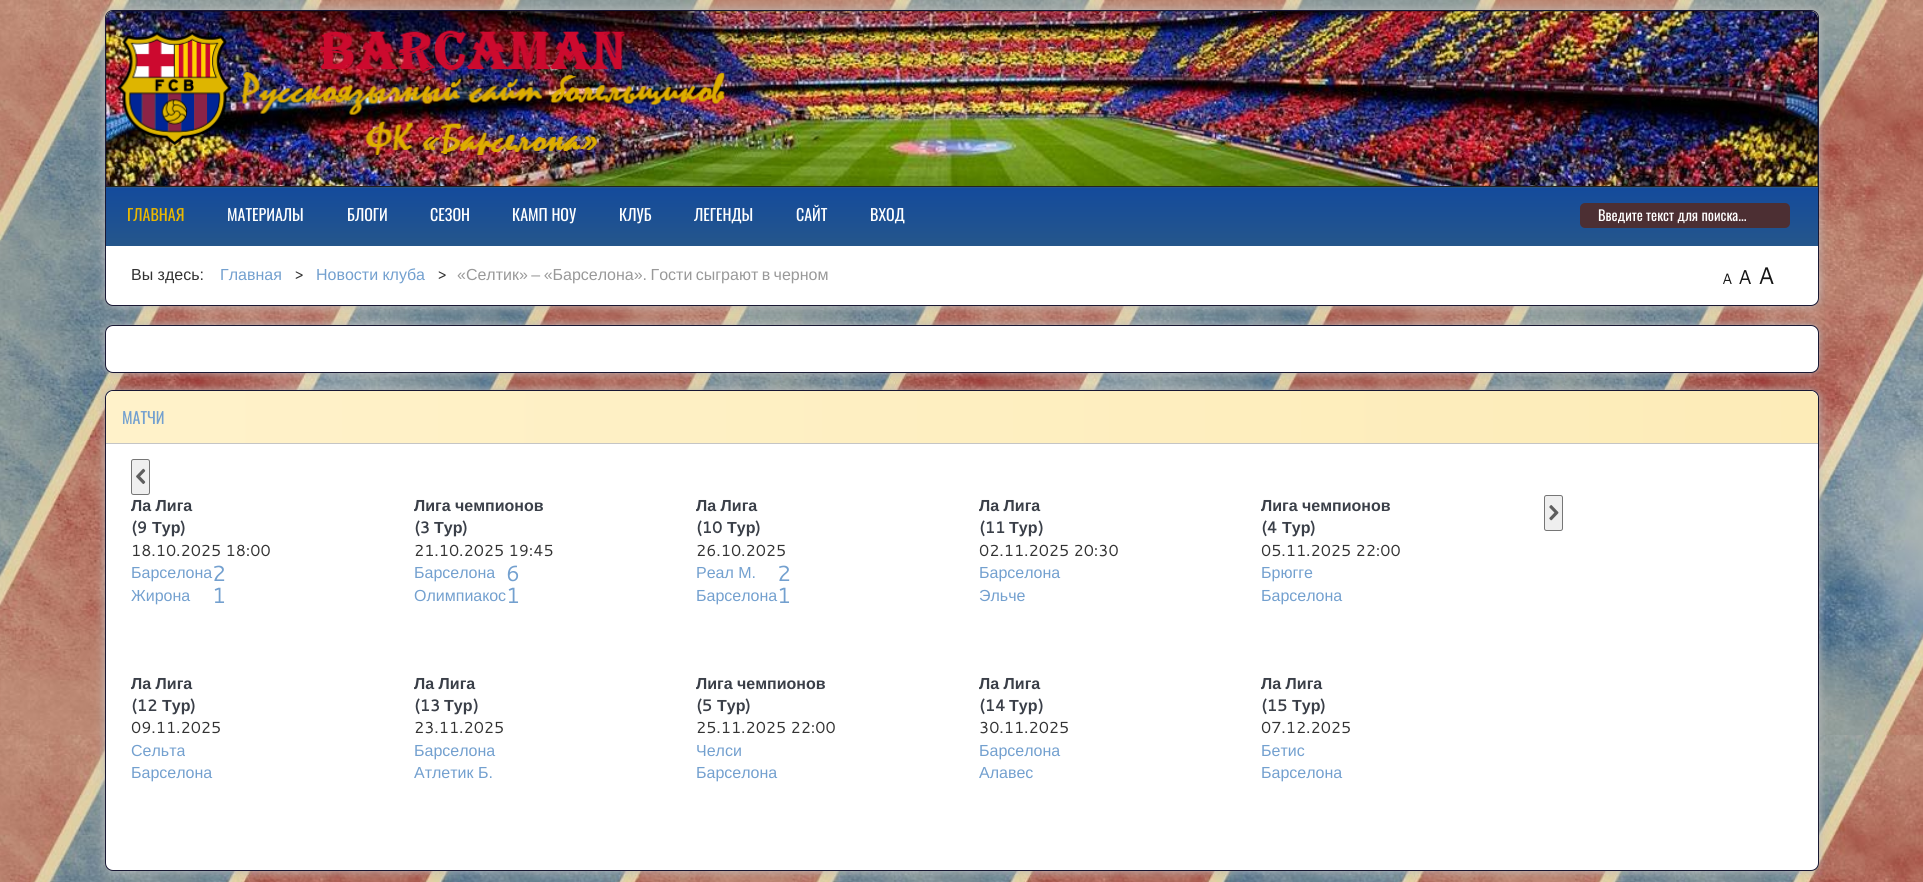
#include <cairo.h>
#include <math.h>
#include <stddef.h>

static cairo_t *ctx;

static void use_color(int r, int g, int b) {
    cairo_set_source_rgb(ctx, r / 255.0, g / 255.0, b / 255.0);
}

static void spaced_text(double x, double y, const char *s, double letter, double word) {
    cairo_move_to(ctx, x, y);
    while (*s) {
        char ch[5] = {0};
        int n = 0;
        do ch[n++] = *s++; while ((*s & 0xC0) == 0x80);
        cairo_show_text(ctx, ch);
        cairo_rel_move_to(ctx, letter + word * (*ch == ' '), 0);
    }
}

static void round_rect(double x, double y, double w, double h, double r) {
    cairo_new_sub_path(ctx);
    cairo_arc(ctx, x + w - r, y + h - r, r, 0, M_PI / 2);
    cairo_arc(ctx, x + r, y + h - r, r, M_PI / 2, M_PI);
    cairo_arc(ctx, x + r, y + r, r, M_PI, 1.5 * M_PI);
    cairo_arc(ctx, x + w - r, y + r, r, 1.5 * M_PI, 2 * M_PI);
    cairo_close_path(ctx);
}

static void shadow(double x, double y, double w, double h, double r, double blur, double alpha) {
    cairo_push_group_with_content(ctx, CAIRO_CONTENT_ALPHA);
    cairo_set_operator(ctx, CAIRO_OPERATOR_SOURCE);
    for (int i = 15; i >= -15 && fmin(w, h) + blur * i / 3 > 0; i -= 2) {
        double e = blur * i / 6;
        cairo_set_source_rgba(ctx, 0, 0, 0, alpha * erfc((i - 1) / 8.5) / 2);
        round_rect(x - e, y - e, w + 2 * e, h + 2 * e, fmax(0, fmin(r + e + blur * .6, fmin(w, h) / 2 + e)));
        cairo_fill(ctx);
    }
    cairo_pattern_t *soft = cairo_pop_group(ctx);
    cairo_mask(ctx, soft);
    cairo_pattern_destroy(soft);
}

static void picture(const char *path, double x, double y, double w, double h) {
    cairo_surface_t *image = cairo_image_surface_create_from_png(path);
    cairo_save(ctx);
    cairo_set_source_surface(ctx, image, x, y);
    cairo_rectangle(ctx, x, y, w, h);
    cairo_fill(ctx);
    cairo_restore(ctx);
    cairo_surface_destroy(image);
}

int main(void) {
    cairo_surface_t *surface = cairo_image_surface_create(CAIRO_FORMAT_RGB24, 1923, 882);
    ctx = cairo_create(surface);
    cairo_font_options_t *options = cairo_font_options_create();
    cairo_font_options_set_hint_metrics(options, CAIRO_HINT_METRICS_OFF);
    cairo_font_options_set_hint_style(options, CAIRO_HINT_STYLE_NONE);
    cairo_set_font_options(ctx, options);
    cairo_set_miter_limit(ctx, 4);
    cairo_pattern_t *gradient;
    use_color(255, 255, 255);
    cairo_paint(ctx);
    picture("img1.png", 0, 0, 1923, 882);
    use_color(189, 189, 189);
    shadow(105, 10, 1714, 296, 8, 5, 1);
    use_color(255, 255, 255);
    round_rect(105.5, 10.5, 1713, 295, 7.5);
    cairo_fill_preserve(ctx);
    use_color(24, 23, 51);
    cairo_set_line_width(ctx, 1);
    cairo_stroke(ctx);
    use_color(16, 15, 14);
    cairo_new_path(ctx);
    cairo_move_to(ctx, 114, 11);
    cairo_line_to(ctx, 1810, 11);
    cairo_curve_to(ctx, 1814.5, 11, 1818, 14.5, 1818, 19);
    cairo_line_to(ctx, 1818, 186);
    cairo_line_to(ctx, 106, 186);
    cairo_line_to(ctx, 106, 19);
    cairo_curve_to(ctx, 106, 14.5, 109.5, 11, 114, 11);
    cairo_close_path(ctx);
    cairo_fill(ctx);
    picture("img2.png", 106, 11, 1712, 175);
    picture("img3.png", 117, 30, 608, 125);
    gradient = cairo_pattern_create_linear(962, 188, 962, 129);
    cairo_pattern_add_color_stop_rgba(gradient, 0, 0.145, 0.337, 0.545, 1);
    cairo_pattern_add_color_stop_rgba(gradient, 1, 0.078, 0.294, 0.612, 1);
    cairo_set_source(ctx, gradient);
    cairo_pattern_destroy(gradient);
    cairo_rectangle(ctx, 106, 187, 1712, 1);
    cairo_fill(ctx);
    gradient = cairo_pattern_create_linear(962, 246, 962, 188);
    cairo_pattern_add_color_stop_rgba(gradient, 0, 0.145, 0.337, 0.545, 1);
    cairo_pattern_add_color_stop_rgba(gradient, 1, 0.078, 0.294, 0.612, 1);
    cairo_set_source(ctx, gradient);
    cairo_pattern_destroy(gradient);
    cairo_rectangle(ctx, 106, 188, 1712, 58);
    cairo_fill(ctx);
    use_color(34, 34, 34);
    cairo_rectangle(ctx, 106, 186, 1712, 1);
    cairo_fill(ctx);
    cairo_select_font_face(ctx, "Oswald", CAIRO_FONT_SLANT_NORMAL, CAIRO_FONT_WEIGHT_NORMAL);
    cairo_set_font_size(ctx, 16);
    use_color(235, 184, 0);
    cairo_move_to(ctx, 127, 221);
    cairo_show_text(ctx, "ГЛАВНАЯ");
    use_color(255, 255, 255);
    cairo_move_to(ctx, 227, 221);
    cairo_show_text(ctx, "МАТЕРИАЛЫ");
    cairo_move_to(ctx, 347, 221);
    cairo_show_text(ctx, "БЛОГИ");
    cairo_move_to(ctx, 430, 221);
    cairo_show_text(ctx, "СЕЗОН");
    cairo_move_to(ctx, 512, 221);
    cairo_show_text(ctx, "КАМП НОУ");
    cairo_move_to(ctx, 619, 221);
    cairo_show_text(ctx, "КЛУБ");
    cairo_move_to(ctx, 694, 221);
    cairo_show_text(ctx, "ЛЕГЕНДЫ");
    cairo_move_to(ctx, 796, 221);
    cairo_show_text(ctx, "САЙТ");
    cairo_move_to(ctx, 870, 221);
    cairo_show_text(ctx, "ВХОД");
    use_color(76, 47, 51);
    round_rect(1580, 203, 210, 25, 5);
    cairo_fill(ctx);
    cairo_set_font_size(ctx, 14.4);
    use_color(255, 255, 255);
    cairo_move_to(ctx, 1598, 221);
    cairo_show_text(ctx, "Введите текст для поиска...");
    cairo_select_font_face(ctx, "Liberation Sans", CAIRO_FONT_SLANT_NORMAL, CAIRO_FONT_WEIGHT_NORMAL);
    cairo_set_font_size(ctx, 16);
    use_color(51, 51, 51);
    cairo_move_to(ctx, 131, 280);
    cairo_show_text(ctx, "Вы здесь:");
    use_color(115, 160, 207);
    cairo_move_to(ctx, 220, 280);
    cairo_show_text(ctx, "Главная");
    cairo_select_font_face(ctx, "Cantarell", CAIRO_FONT_SLANT_NORMAL, CAIRO_FONT_WEIGHT_NORMAL);
    use_color(51, 51, 51);
    cairo_move_to(ctx, 295, 280);
    cairo_show_text(ctx, ">");
    cairo_select_font_face(ctx, "Liberation Sans", CAIRO_FONT_SLANT_NORMAL, CAIRO_FONT_WEIGHT_NORMAL);
    use_color(115, 160, 207);
    cairo_move_to(ctx, 316, 280);
    cairo_show_text(ctx, "Новости клуба");
    cairo_select_font_face(ctx, "Cantarell", CAIRO_FONT_SLANT_NORMAL, CAIRO_FONT_WEIGHT_NORMAL);
    use_color(51, 51, 51);
    cairo_move_to(ctx, 438, 280);
    cairo_show_text(ctx, ">");
    cairo_select_font_face(ctx, "Liberation Sans", CAIRO_FONT_SLANT_NORMAL, CAIRO_FONT_WEIGHT_NORMAL);
    use_color(153, 153, 153);
    spaced_text(457, 280, "«Селтик» – «Барселона». Гости сыграют в черном", 0, -1);
    cairo_select_font_face(ctx, "Cantarell", CAIRO_FONT_SLANT_NORMAL, CAIRO_FONT_WEIGHT_NORMAL);
    cairo_set_font_size(ctx, 15);
    use_color(21, 21, 21);
    cairo_move_to(ctx, 1722, 284);
    cairo_show_text(ctx, "A");
    cairo_set_font_size(ctx, 20);
    cairo_move_to(ctx, 1738, 284);
    cairo_show_text(ctx, "A");
    cairo_set_font_size(ctx, 24);
    cairo_move_to(ctx, 1758, 284);
    cairo_show_text(ctx, "A");
    use_color(189, 189, 189);
    shadow(105, 325, 1714, 48, 8, 5, 1);
    use_color(255, 255, 255);
    round_rect(105.5, 325.5, 1713, 47, 7.5);
    cairo_fill_preserve(ctx);
    use_color(24, 23, 51);
    cairo_stroke(ctx);
    use_color(189, 189, 189);
    shadow(105, 390, 1714, 481, 8, 5, 1);
    use_color(255, 255, 255);
    round_rect(105.5, 390.5, 1713, 480, 7.5);
    cairo_fill_preserve(ctx);
    use_color(24, 23, 51);
    cairo_stroke(ctx);
    gradient = cairo_pattern_create_linear(106, 417, 1818, 417);
    cairo_pattern_add_color_stop_rgba(gradient, 0, 1, 0.949, 0.792, 1);
    cairo_pattern_add_color_stop_rgba(gradient, 1, 0.992, 0.925, 0.722, 1);
    cairo_set_source(ctx, gradient);
    cairo_pattern_destroy(gradient);
    cairo_new_path(ctx);
    cairo_move_to(ctx, 114, 391);
    cairo_line_to(ctx, 1810, 391);
    cairo_curve_to(ctx, 1814.5, 391, 1818, 394.5, 1818, 399);
    cairo_line_to(ctx, 1818, 444);
    cairo_line_to(ctx, 106, 444);
    cairo_line_to(ctx, 106, 399);
    cairo_curve_to(ctx, 106, 394.5, 109.5, 391, 114, 391);
    cairo_close_path(ctx);
    cairo_fill(ctx);
    use_color(197, 197, 197);
    cairo_rectangle(ctx, 106, 443, 1712, 1);
    cairo_fill(ctx);
    cairo_select_font_face(ctx, "Oswald", CAIRO_FONT_SLANT_NORMAL, CAIRO_FONT_WEIGHT_NORMAL);
    cairo_set_font_size(ctx, 16);
    use_color(115, 160, 207);
    cairo_move_to(ctx, 122, 424);
    cairo_show_text(ctx, "МАТЧИ");
    use_color(239, 239, 239);
    round_rect(131.5, 459.5, 18, 35, 2);
    cairo_fill_preserve(ctx);
    use_color(118, 118, 118);
    cairo_stroke(ctx);
    picture("img4.png", 136, 468, 10, 16);
    cairo_select_font_face(ctx, "Liberation Sans", CAIRO_FONT_SLANT_NORMAL, CAIRO_FONT_WEIGHT_BOLD);
    use_color(58, 63, 72);
    cairo_move_to(ctx, 131, 511);
    cairo_show_text(ctx, "Ла Лига");
    cairo_select_font_face(ctx, "Cantarell", CAIRO_FONT_SLANT_NORMAL, CAIRO_FONT_WEIGHT_BOLD);
    cairo_move_to(ctx, 131, 533);
    cairo_show_text(ctx, "(9");
    cairo_select_font_face(ctx, "Liberation Sans", CAIRO_FONT_SLANT_NORMAL, CAIRO_FONT_WEIGHT_BOLD);
    cairo_move_to(ctx, 152, 533);
    cairo_show_text(ctx, "Тур");
    cairo_select_font_face(ctx, "Cantarell", CAIRO_FONT_SLANT_NORMAL, CAIRO_FONT_WEIGHT_BOLD);
    cairo_move_to(ctx, 180, 533);
    cairo_show_text(ctx, ")");
    cairo_select_font_face(ctx, "Cantarell", CAIRO_FONT_SLANT_NORMAL, CAIRO_FONT_WEIGHT_NORMAL);
    use_color(51, 51, 51);
    cairo_move_to(ctx, 131, 556);
    cairo_show_text(ctx, "18.10.2025 18:00");
    cairo_select_font_face(ctx, "Liberation Sans", CAIRO_FONT_SLANT_NORMAL, CAIRO_FONT_WEIGHT_NORMAL);
    use_color(115, 160, 207);
    cairo_move_to(ctx, 131, 578);
    cairo_show_text(ctx, "Барселона");
    cairo_select_font_face(ctx, "Cantarell", CAIRO_FONT_SLANT_NORMAL, CAIRO_FONT_WEIGHT_NORMAL);
    cairo_set_font_size(ctx, 22);
    cairo_move_to(ctx, 212, 581);
    cairo_show_text(ctx, "2");
    cairo_select_font_face(ctx, "Liberation Sans", CAIRO_FONT_SLANT_NORMAL, CAIRO_FONT_WEIGHT_NORMAL);
    cairo_set_font_size(ctx, 16);
    cairo_move_to(ctx, 131, 601);
    cairo_show_text(ctx, "Жирона");
    cairo_select_font_face(ctx, "Cantarell", CAIRO_FONT_SLANT_NORMAL, CAIRO_FONT_WEIGHT_NORMAL);
    cairo_set_font_size(ctx, 22);
    cairo_move_to(ctx, 212, 603);
    cairo_show_text(ctx, "1");
    cairo_select_font_face(ctx, "Liberation Sans", CAIRO_FONT_SLANT_NORMAL, CAIRO_FONT_WEIGHT_BOLD);
    cairo_set_font_size(ctx, 16);
    use_color(58, 63, 72);
    cairo_move_to(ctx, 414, 511);
    cairo_show_text(ctx, "Лига чемпионов");
    cairo_select_font_face(ctx, "Cantarell", CAIRO_FONT_SLANT_NORMAL, CAIRO_FONT_WEIGHT_BOLD);
    cairo_move_to(ctx, 414, 533);
    cairo_show_text(ctx, "(3");
    cairo_select_font_face(ctx, "Liberation Sans", CAIRO_FONT_SLANT_NORMAL, CAIRO_FONT_WEIGHT_BOLD);
    cairo_move_to(ctx, 434, 533);
    cairo_show_text(ctx, "Тур");
    cairo_select_font_face(ctx, "Cantarell", CAIRO_FONT_SLANT_NORMAL, CAIRO_FONT_WEIGHT_BOLD);
    cairo_move_to(ctx, 462, 533);
    cairo_show_text(ctx, ")");
    cairo_select_font_face(ctx, "Cantarell", CAIRO_FONT_SLANT_NORMAL, CAIRO_FONT_WEIGHT_NORMAL);
    use_color(51, 51, 51);
    cairo_move_to(ctx, 414, 556);
    cairo_show_text(ctx, "21.10.2025 19:45");
    cairo_select_font_face(ctx, "Liberation Sans", CAIRO_FONT_SLANT_NORMAL, CAIRO_FONT_WEIGHT_NORMAL);
    use_color(115, 160, 207);
    cairo_move_to(ctx, 414, 578);
    cairo_show_text(ctx, "Барселона");
    cairo_select_font_face(ctx, "Cantarell", CAIRO_FONT_SLANT_NORMAL, CAIRO_FONT_WEIGHT_NORMAL);
    cairo_set_font_size(ctx, 22);
    cairo_move_to(ctx, 506, 581);
    cairo_show_text(ctx, "6");
    cairo_select_font_face(ctx, "Liberation Sans", CAIRO_FONT_SLANT_NORMAL, CAIRO_FONT_WEIGHT_NORMAL);
    cairo_set_font_size(ctx, 16);
    cairo_move_to(ctx, 414, 601);
    cairo_show_text(ctx, "Олимпиакос");
    cairo_select_font_face(ctx, "Cantarell", CAIRO_FONT_SLANT_NORMAL, CAIRO_FONT_WEIGHT_NORMAL);
    cairo_set_font_size(ctx, 22);
    cairo_move_to(ctx, 506, 603);
    cairo_show_text(ctx, "1");
    cairo_select_font_face(ctx, "Liberation Sans", CAIRO_FONT_SLANT_NORMAL, CAIRO_FONT_WEIGHT_BOLD);
    cairo_set_font_size(ctx, 16);
    use_color(58, 63, 72);
    cairo_move_to(ctx, 696, 511);
    cairo_show_text(ctx, "Ла Лига");
    cairo_select_font_face(ctx, "Cantarell", CAIRO_FONT_SLANT_NORMAL, CAIRO_FONT_WEIGHT_BOLD);
    cairo_move_to(ctx, 696, 533);
    cairo_show_text(ctx, "(10");
    cairo_select_font_face(ctx, "Liberation Sans", CAIRO_FONT_SLANT_NORMAL, CAIRO_FONT_WEIGHT_BOLD);
    cairo_move_to(ctx, 727, 533);
    cairo_show_text(ctx, "Тур");
    cairo_select_font_face(ctx, "Cantarell", CAIRO_FONT_SLANT_NORMAL, CAIRO_FONT_WEIGHT_BOLD);
    cairo_move_to(ctx, 755, 533);
    cairo_show_text(ctx, ")");
    cairo_select_font_face(ctx, "Cantarell", CAIRO_FONT_SLANT_NORMAL, CAIRO_FONT_WEIGHT_NORMAL);
    use_color(51, 51, 51);
    cairo_move_to(ctx, 696, 556);
    cairo_show_text(ctx, "26.10.2025");
    cairo_select_font_face(ctx, "Liberation Sans", CAIRO_FONT_SLANT_NORMAL, CAIRO_FONT_WEIGHT_NORMAL);
    use_color(115, 160, 207);
    cairo_move_to(ctx, 696, 578);
    cairo_show_text(ctx, "Реал М.");
    cairo_select_font_face(ctx, "Cantarell", CAIRO_FONT_SLANT_NORMAL, CAIRO_FONT_WEIGHT_NORMAL);
    cairo_set_font_size(ctx, 22);
    cairo_move_to(ctx, 777, 581);
    cairo_show_text(ctx, "2");
    cairo_select_font_face(ctx, "Liberation Sans", CAIRO_FONT_SLANT_NORMAL, CAIRO_FONT_WEIGHT_NORMAL);
    cairo_set_font_size(ctx, 16);
    cairo_move_to(ctx, 696, 601);
    cairo_show_text(ctx, "Барселона");
    cairo_select_font_face(ctx, "Cantarell", CAIRO_FONT_SLANT_NORMAL, CAIRO_FONT_WEIGHT_NORMAL);
    cairo_set_font_size(ctx, 22);
    cairo_move_to(ctx, 777, 603);
    cairo_show_text(ctx, "1");
    cairo_select_font_face(ctx, "Liberation Sans", CAIRO_FONT_SLANT_NORMAL, CAIRO_FONT_WEIGHT_BOLD);
    cairo_set_font_size(ctx, 16);
    use_color(58, 63, 72);
    cairo_move_to(ctx, 979, 511);
    cairo_show_text(ctx, "Ла Лига");
    cairo_select_font_face(ctx, "Cantarell", CAIRO_FONT_SLANT_NORMAL, CAIRO_FONT_WEIGHT_BOLD);
    cairo_move_to(ctx, 979, 533);
    cairo_show_text(ctx, "(11");
    cairo_select_font_face(ctx, "Liberation Sans", CAIRO_FONT_SLANT_NORMAL, CAIRO_FONT_WEIGHT_BOLD);
    cairo_move_to(ctx, 1009, 533);
    cairo_show_text(ctx, "Тур");
    cairo_select_font_face(ctx, "Cantarell", CAIRO_FONT_SLANT_NORMAL, CAIRO_FONT_WEIGHT_BOLD);
    cairo_move_to(ctx, 1038, 533);
    cairo_show_text(ctx, ")");
    cairo_select_font_face(ctx, "Cantarell", CAIRO_FONT_SLANT_NORMAL, CAIRO_FONT_WEIGHT_NORMAL);
    use_color(51, 51, 51);
    cairo_move_to(ctx, 979, 556);
    cairo_show_text(ctx, "02.11.2025 20:30");
    cairo_select_font_face(ctx, "Liberation Sans", CAIRO_FONT_SLANT_NORMAL, CAIRO_FONT_WEIGHT_NORMAL);
    use_color(115, 160, 207);
    cairo_move_to(ctx, 979, 578);
    cairo_show_text(ctx, "Барселона");
    cairo_move_to(ctx, 979, 601);
    cairo_show_text(ctx, "Эльче");
    cairo_select_font_face(ctx, "Liberation Sans", CAIRO_FONT_SLANT_NORMAL, CAIRO_FONT_WEIGHT_BOLD);
    use_color(58, 63, 72);
    cairo_move_to(ctx, 1261, 511);
    cairo_show_text(ctx, "Лига чемпионов");
    cairo_select_font_face(ctx, "Cantarell", CAIRO_FONT_SLANT_NORMAL, CAIRO_FONT_WEIGHT_BOLD);
    cairo_move_to(ctx, 1261, 533);
    cairo_show_text(ctx, "(4");
    cairo_select_font_face(ctx, "Liberation Sans", CAIRO_FONT_SLANT_NORMAL, CAIRO_FONT_WEIGHT_BOLD);
    cairo_move_to(ctx, 1282, 533);
    cairo_show_text(ctx, "Тур");
    cairo_select_font_face(ctx, "Cantarell", CAIRO_FONT_SLANT_NORMAL, CAIRO_FONT_WEIGHT_BOLD);
    cairo_move_to(ctx, 1310, 533);
    cairo_show_text(ctx, ")");
    cairo_select_font_face(ctx, "Cantarell", CAIRO_FONT_SLANT_NORMAL, CAIRO_FONT_WEIGHT_NORMAL);
    use_color(51, 51, 51);
    cairo_move_to(ctx, 1261, 556);
    cairo_show_text(ctx, "05.11.2025 22:00");
    cairo_select_font_face(ctx, "Liberation Sans", CAIRO_FONT_SLANT_NORMAL, CAIRO_FONT_WEIGHT_NORMAL);
    use_color(115, 160, 207);
    cairo_move_to(ctx, 1261, 578);
    cairo_show_text(ctx, "Брюгге");
    cairo_move_to(ctx, 1261, 601);
    cairo_show_text(ctx, "Барселона");
    cairo_select_font_face(ctx, "Liberation Sans", CAIRO_FONT_SLANT_NORMAL, CAIRO_FONT_WEIGHT_BOLD);
    use_color(58, 63, 72);
    cairo_move_to(ctx, 131, 689);
    cairo_show_text(ctx, "Ла Лига");
    cairo_select_font_face(ctx, "Cantarell", CAIRO_FONT_SLANT_NORMAL, CAIRO_FONT_WEIGHT_BOLD);
    cairo_move_to(ctx, 131, 711);
    cairo_show_text(ctx, "(12");
    cairo_select_font_face(ctx, "Liberation Sans", CAIRO_FONT_SLANT_NORMAL, CAIRO_FONT_WEIGHT_BOLD);
    cairo_move_to(ctx, 162, 711);
    cairo_show_text(ctx, "Тур");
    cairo_select_font_face(ctx, "Cantarell", CAIRO_FONT_SLANT_NORMAL, CAIRO_FONT_WEIGHT_BOLD);
    cairo_move_to(ctx, 190, 711);
    cairo_show_text(ctx, ")");
    cairo_select_font_face(ctx, "Cantarell", CAIRO_FONT_SLANT_NORMAL, CAIRO_FONT_WEIGHT_NORMAL);
    use_color(51, 51, 51);
    cairo_move_to(ctx, 131, 733);
    cairo_show_text(ctx, "09.11.2025");
    cairo_select_font_face(ctx, "Liberation Sans", CAIRO_FONT_SLANT_NORMAL, CAIRO_FONT_WEIGHT_NORMAL);
    use_color(115, 160, 207);
    cairo_move_to(ctx, 131, 756);
    cairo_show_text(ctx, "Сельта");
    cairo_move_to(ctx, 131, 778);
    cairo_show_text(ctx, "Барселона");
    cairo_select_font_face(ctx, "Liberation Sans", CAIRO_FONT_SLANT_NORMAL, CAIRO_FONT_WEIGHT_BOLD);
    use_color(58, 63, 72);
    cairo_move_to(ctx, 414, 689);
    cairo_show_text(ctx, "Ла Лига");
    cairo_select_font_face(ctx, "Cantarell", CAIRO_FONT_SLANT_NORMAL, CAIRO_FONT_WEIGHT_BOLD);
    cairo_move_to(ctx, 414, 711);
    cairo_show_text(ctx, "(13");
    cairo_select_font_face(ctx, "Liberation Sans", CAIRO_FONT_SLANT_NORMAL, CAIRO_FONT_WEIGHT_BOLD);
    cairo_move_to(ctx, 444, 711);
    cairo_show_text(ctx, "Тур");
    cairo_select_font_face(ctx, "Cantarell", CAIRO_FONT_SLANT_NORMAL, CAIRO_FONT_WEIGHT_BOLD);
    cairo_move_to(ctx, 473, 711);
    cairo_show_text(ctx, ")");
    cairo_select_font_face(ctx, "Cantarell", CAIRO_FONT_SLANT_NORMAL, CAIRO_FONT_WEIGHT_NORMAL);
    use_color(51, 51, 51);
    cairo_move_to(ctx, 414, 733);
    cairo_show_text(ctx, "23.11.2025");
    cairo_select_font_face(ctx, "Liberation Sans", CAIRO_FONT_SLANT_NORMAL, CAIRO_FONT_WEIGHT_NORMAL);
    use_color(115, 160, 207);
    cairo_move_to(ctx, 414, 756);
    cairo_show_text(ctx, "Барселона");
    cairo_move_to(ctx, 414, 778);
    cairo_show_text(ctx, "Атлетик Б.");
    cairo_select_font_face(ctx, "Liberation Sans", CAIRO_FONT_SLANT_NORMAL, CAIRO_FONT_WEIGHT_BOLD);
    use_color(58, 63, 72);
    cairo_move_to(ctx, 696, 689);
    cairo_show_text(ctx, "Лига чемпионов");
    cairo_select_font_face(ctx, "Cantarell", CAIRO_FONT_SLANT_NORMAL, CAIRO_FONT_WEIGHT_BOLD);
    cairo_move_to(ctx, 696, 711);
    cairo_show_text(ctx, "(5");
    cairo_select_font_face(ctx, "Liberation Sans", CAIRO_FONT_SLANT_NORMAL, CAIRO_FONT_WEIGHT_BOLD);
    cairo_move_to(ctx, 717, 711);
    cairo_show_text(ctx, "Тур");
    cairo_select_font_face(ctx, "Cantarell", CAIRO_FONT_SLANT_NORMAL, CAIRO_FONT_WEIGHT_BOLD);
    cairo_move_to(ctx, 745, 711);
    cairo_show_text(ctx, ")");
    cairo_select_font_face(ctx, "Cantarell", CAIRO_FONT_SLANT_NORMAL, CAIRO_FONT_WEIGHT_NORMAL);
    use_color(51, 51, 51);
    cairo_move_to(ctx, 696, 733);
    cairo_show_text(ctx, "25.11.2025 22:00");
    cairo_select_font_face(ctx, "Liberation Sans", CAIRO_FONT_SLANT_NORMAL, CAIRO_FONT_WEIGHT_NORMAL);
    use_color(115, 160, 207);
    cairo_move_to(ctx, 696, 756);
    cairo_show_text(ctx, "Челси");
    cairo_move_to(ctx, 696, 778);
    cairo_show_text(ctx, "Барселона");
    cairo_select_font_face(ctx, "Liberation Sans", CAIRO_FONT_SLANT_NORMAL, CAIRO_FONT_WEIGHT_BOLD);
    use_color(58, 63, 72);
    cairo_move_to(ctx, 979, 689);
    cairo_show_text(ctx, "Ла Лига");
    cairo_select_font_face(ctx, "Cantarell", CAIRO_FONT_SLANT_NORMAL, CAIRO_FONT_WEIGHT_BOLD);
    cairo_move_to(ctx, 979, 711);
    cairo_show_text(ctx, "(14");
    cairo_select_font_face(ctx, "Liberation Sans", CAIRO_FONT_SLANT_NORMAL, CAIRO_FONT_WEIGHT_BOLD);
    cairo_move_to(ctx, 1009, 711);
    cairo_show_text(ctx, "Тур");
    cairo_select_font_face(ctx, "Cantarell", CAIRO_FONT_SLANT_NORMAL, CAIRO_FONT_WEIGHT_BOLD);
    cairo_move_to(ctx, 1038, 711);
    cairo_show_text(ctx, ")");
    cairo_select_font_face(ctx, "Cantarell", CAIRO_FONT_SLANT_NORMAL, CAIRO_FONT_WEIGHT_NORMAL);
    use_color(51, 51, 51);
    cairo_move_to(ctx, 979, 733);
    cairo_show_text(ctx, "30.11.2025");
    cairo_select_font_face(ctx, "Liberation Sans", CAIRO_FONT_SLANT_NORMAL, CAIRO_FONT_WEIGHT_NORMAL);
    use_color(115, 160, 207);
    cairo_move_to(ctx, 979, 756);
    cairo_show_text(ctx, "Барселона");
    cairo_move_to(ctx, 979, 778);
    cairo_show_text(ctx, "Алавес");
    cairo_select_font_face(ctx, "Liberation Sans", CAIRO_FONT_SLANT_NORMAL, CAIRO_FONT_WEIGHT_BOLD);
    use_color(58, 63, 72);
    cairo_move_to(ctx, 1261, 689);
    cairo_show_text(ctx, "Ла Лига");
    cairo_select_font_face(ctx, "Cantarell", CAIRO_FONT_SLANT_NORMAL, CAIRO_FONT_WEIGHT_BOLD);
    cairo_move_to(ctx, 1261, 711);
    cairo_show_text(ctx, "(15");
    cairo_select_font_face(ctx, "Liberation Sans", CAIRO_FONT_SLANT_NORMAL, CAIRO_FONT_WEIGHT_BOLD);
    cairo_move_to(ctx, 1292, 711);
    cairo_show_text(ctx, "Тур");
    cairo_select_font_face(ctx, "Cantarell", CAIRO_FONT_SLANT_NORMAL, CAIRO_FONT_WEIGHT_BOLD);
    cairo_move_to(ctx, 1320, 711);
    cairo_show_text(ctx, ")");
    cairo_select_font_face(ctx, "Cantarell", CAIRO_FONT_SLANT_NORMAL, CAIRO_FONT_WEIGHT_NORMAL);
    use_color(51, 51, 51);
    cairo_move_to(ctx, 1261, 733);
    cairo_show_text(ctx, "07.12.2025");
    cairo_select_font_face(ctx, "Liberation Sans", CAIRO_FONT_SLANT_NORMAL, CAIRO_FONT_WEIGHT_NORMAL);
    use_color(115, 160, 207);
    cairo_move_to(ctx, 1261, 756);
    cairo_show_text(ctx, "Бетис");
    cairo_move_to(ctx, 1261, 778);
    cairo_show_text(ctx, "Барселона");
    use_color(239, 239, 239);
    round_rect(1544.5, 495.5, 18, 35, 2);
    cairo_fill_preserve(ctx);
    use_color(118, 118, 118);
    cairo_stroke(ctx);
    picture("img5.png", 1549, 505, 10, 16);
    cairo_surface_write_to_png(surface, "result.png");
    cairo_font_options_destroy(options);
    cairo_destroy(ctx);
    cairo_surface_destroy(surface);
    return 0;
}
